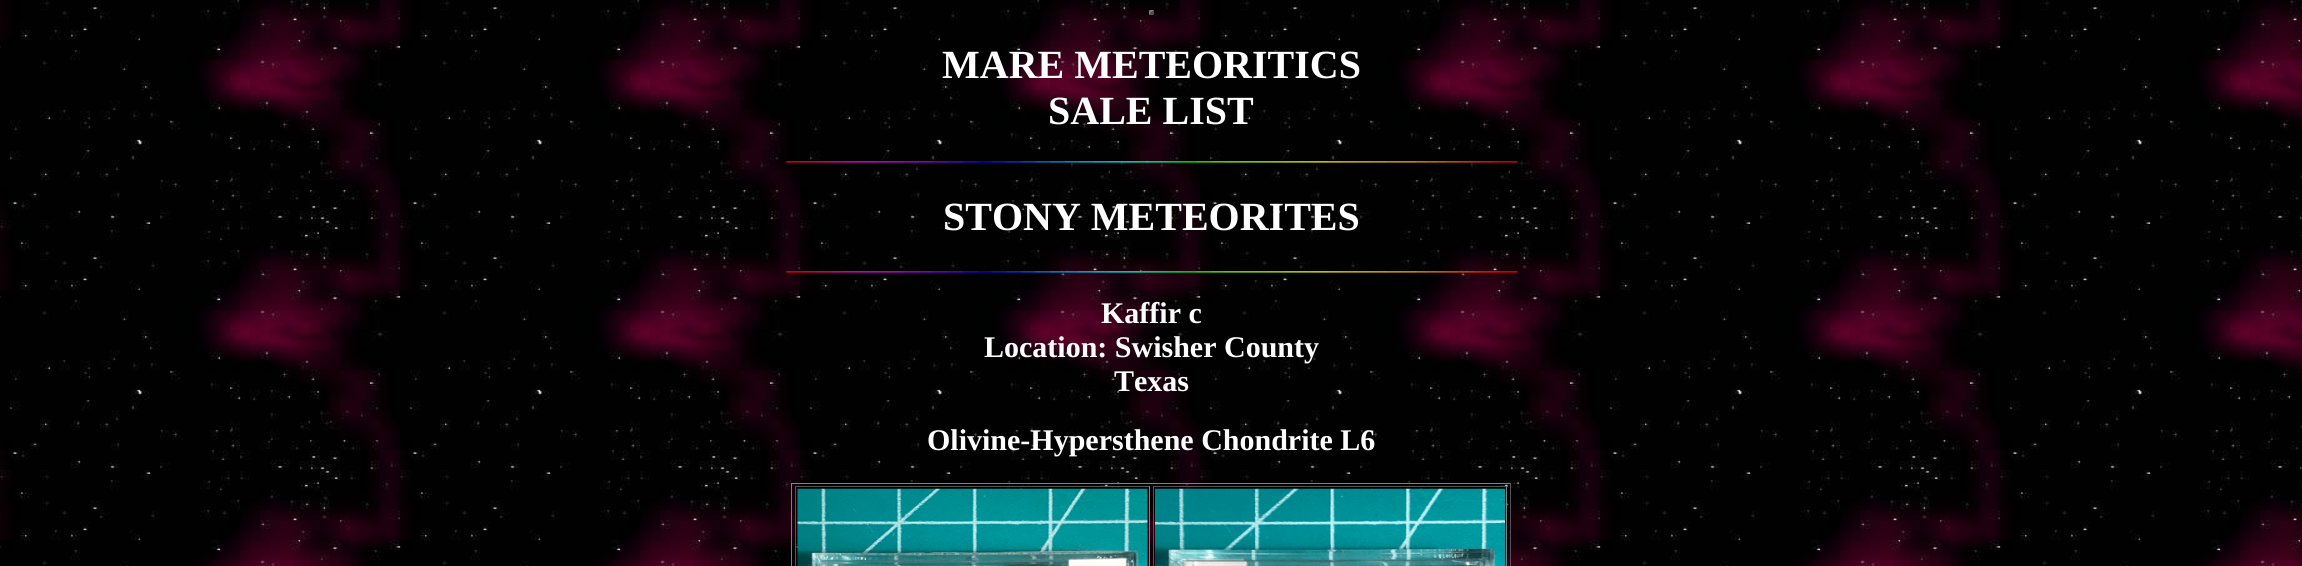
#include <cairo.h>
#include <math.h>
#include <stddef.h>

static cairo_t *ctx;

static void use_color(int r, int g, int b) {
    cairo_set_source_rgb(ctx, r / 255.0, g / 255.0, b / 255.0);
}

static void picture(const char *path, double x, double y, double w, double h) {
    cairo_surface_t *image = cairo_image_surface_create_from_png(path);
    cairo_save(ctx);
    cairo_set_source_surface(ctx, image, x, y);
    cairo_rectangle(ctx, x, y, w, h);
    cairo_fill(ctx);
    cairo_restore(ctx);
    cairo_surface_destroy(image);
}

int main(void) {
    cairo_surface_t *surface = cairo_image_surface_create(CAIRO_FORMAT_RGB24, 2302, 566);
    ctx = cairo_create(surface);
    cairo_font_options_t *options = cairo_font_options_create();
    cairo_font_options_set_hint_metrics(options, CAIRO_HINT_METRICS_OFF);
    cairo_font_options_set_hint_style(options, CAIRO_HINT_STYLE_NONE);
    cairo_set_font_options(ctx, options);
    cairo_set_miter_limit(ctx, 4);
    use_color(255, 255, 255);
    cairo_paint(ctx);
    picture("img1.png", 0, 0, 2302, 566);
    use_color(128, 128, 128);
    cairo_new_path(ctx);
    cairo_move_to(ctx, 1149, 10);
    cairo_line_to(ctx, 1154, 10);
    cairo_line_to(ctx, 1151, 12.5);
    cairo_close_path(ctx);
    cairo_fill(ctx);
    use_color(85, 85, 85);
    cairo_new_path(ctx);
    cairo_move_to(ctx, 1154, 10);
    cairo_line_to(ctx, 1154, 15);
    cairo_line_to(ctx, 1151, 12.5);
    cairo_close_path(ctx);
    cairo_fill(ctx);
    cairo_new_path(ctx);
    cairo_move_to(ctx, 1154, 15);
    cairo_line_to(ctx, 1149, 15);
    cairo_line_to(ctx, 1151, 12.5);
    cairo_close_path(ctx);
    cairo_fill(ctx);
    use_color(128, 128, 128);
    cairo_new_path(ctx);
    cairo_move_to(ctx, 1149, 15);
    cairo_line_to(ctx, 1149, 10);
    cairo_line_to(ctx, 1151, 12.5);
    cairo_close_path(ctx);
    cairo_fill(ctx);
    cairo_select_font_face(ctx, "Liberation Serif", CAIRO_FONT_SLANT_NORMAL, CAIRO_FONT_WEIGHT_BOLD);
    cairo_set_font_size(ctx, 40);
    use_color(255, 255, 255);
    cairo_move_to(ctx, 942, 78);
    cairo_show_text(ctx, "MARE METEORITICS");
    cairo_move_to(ctx, 1048, 124);
    cairo_show_text(ctx, "SALE LIST");
    picture("img2.png", 786, 161, 732, 2);
    cairo_move_to(ctx, 943, 230);
    cairo_show_text(ctx, "STONY METEORITES");
    picture("img3.png", 786, 271, 732, 2);
    cairo_set_font_size(ctx, 30);
    cairo_move_to(ctx, 1101, 323);
    cairo_show_text(ctx, "Kaffir c");
    cairo_move_to(ctx, 984, 357);
    cairo_show_text(ctx, "Location: Swisher County");
    cairo_move_to(ctx, 1114, 391);
    cairo_show_text(ctx, "Texas");
    cairo_move_to(ctx, 927, 450);
    cairo_show_text(ctx, "Olivine-Hypersthene Chondrite L6");
    use_color(128, 128, 128);
    cairo_rectangle(ctx, 791, 483, 720, 1);
    cairo_fill(ctx);
    use_color(85, 85, 85);
    cairo_rectangle(ctx, 1510, 483, 1, 83);
    cairo_fill(ctx);
    use_color(128, 128, 128);
    cairo_rectangle(ctx, 791, 483, 1, 83);
    cairo_fill(ctx);
    use_color(85, 85, 85);
    cairo_rectangle(ctx, 795, 486, 355, 1);
    cairo_fill(ctx);
    use_color(128, 128, 128);
    cairo_rectangle(ctx, 1149, 486, 1, 80);
    cairo_fill(ctx);
    use_color(85, 85, 85);
    cairo_rectangle(ctx, 795, 486, 1, 80);
    cairo_fill(ctx);
    picture("img4.png", 797, 488, 351, 78);
    cairo_rectangle(ctx, 1153, 486, 355, 1);
    cairo_fill(ctx);
    use_color(128, 128, 128);
    cairo_rectangle(ctx, 1506, 486, 1, 80);
    cairo_fill(ctx);
    use_color(85, 85, 85);
    cairo_rectangle(ctx, 1153, 486, 1, 80);
    cairo_fill(ctx);
    picture("img5.png", 1155, 488, 350, 78);
    cairo_surface_write_to_png(surface, "result.png");
    cairo_font_options_destroy(options);
    cairo_destroy(ctx);
    cairo_surface_destroy(surface);
    return 0;
}
